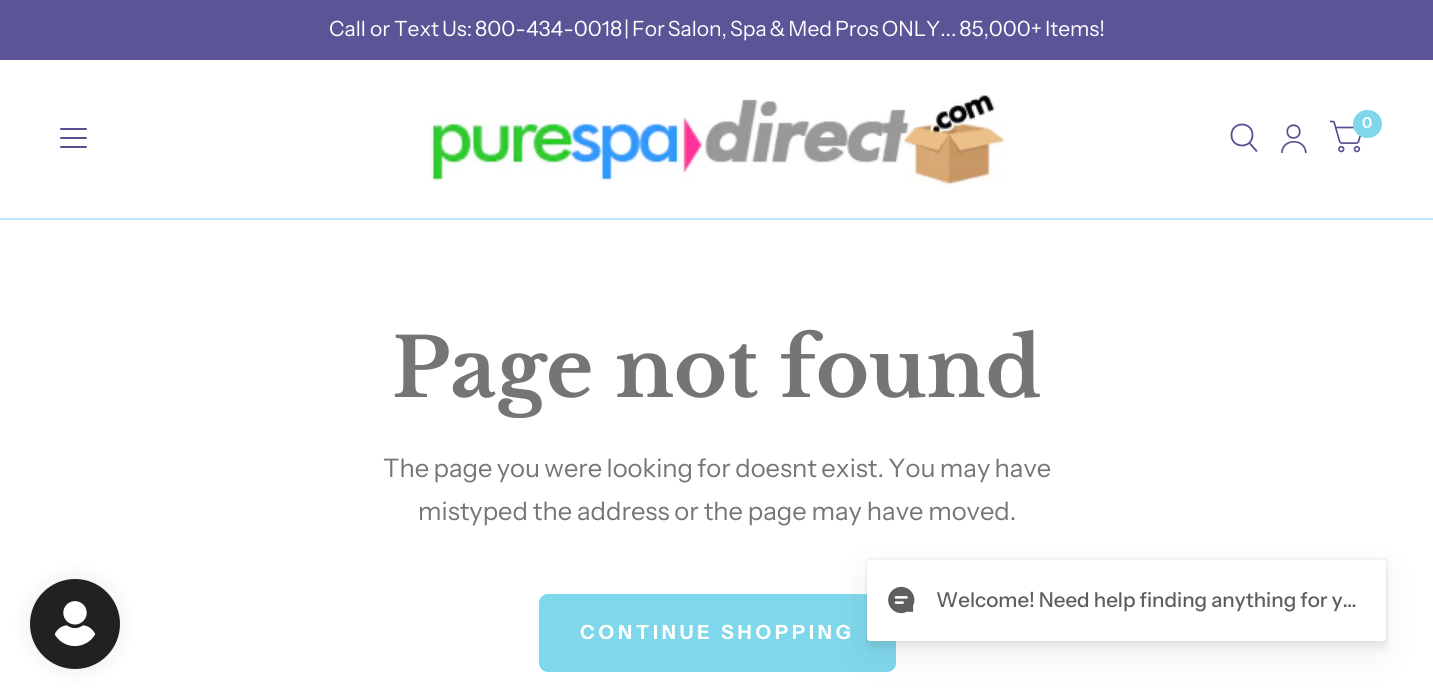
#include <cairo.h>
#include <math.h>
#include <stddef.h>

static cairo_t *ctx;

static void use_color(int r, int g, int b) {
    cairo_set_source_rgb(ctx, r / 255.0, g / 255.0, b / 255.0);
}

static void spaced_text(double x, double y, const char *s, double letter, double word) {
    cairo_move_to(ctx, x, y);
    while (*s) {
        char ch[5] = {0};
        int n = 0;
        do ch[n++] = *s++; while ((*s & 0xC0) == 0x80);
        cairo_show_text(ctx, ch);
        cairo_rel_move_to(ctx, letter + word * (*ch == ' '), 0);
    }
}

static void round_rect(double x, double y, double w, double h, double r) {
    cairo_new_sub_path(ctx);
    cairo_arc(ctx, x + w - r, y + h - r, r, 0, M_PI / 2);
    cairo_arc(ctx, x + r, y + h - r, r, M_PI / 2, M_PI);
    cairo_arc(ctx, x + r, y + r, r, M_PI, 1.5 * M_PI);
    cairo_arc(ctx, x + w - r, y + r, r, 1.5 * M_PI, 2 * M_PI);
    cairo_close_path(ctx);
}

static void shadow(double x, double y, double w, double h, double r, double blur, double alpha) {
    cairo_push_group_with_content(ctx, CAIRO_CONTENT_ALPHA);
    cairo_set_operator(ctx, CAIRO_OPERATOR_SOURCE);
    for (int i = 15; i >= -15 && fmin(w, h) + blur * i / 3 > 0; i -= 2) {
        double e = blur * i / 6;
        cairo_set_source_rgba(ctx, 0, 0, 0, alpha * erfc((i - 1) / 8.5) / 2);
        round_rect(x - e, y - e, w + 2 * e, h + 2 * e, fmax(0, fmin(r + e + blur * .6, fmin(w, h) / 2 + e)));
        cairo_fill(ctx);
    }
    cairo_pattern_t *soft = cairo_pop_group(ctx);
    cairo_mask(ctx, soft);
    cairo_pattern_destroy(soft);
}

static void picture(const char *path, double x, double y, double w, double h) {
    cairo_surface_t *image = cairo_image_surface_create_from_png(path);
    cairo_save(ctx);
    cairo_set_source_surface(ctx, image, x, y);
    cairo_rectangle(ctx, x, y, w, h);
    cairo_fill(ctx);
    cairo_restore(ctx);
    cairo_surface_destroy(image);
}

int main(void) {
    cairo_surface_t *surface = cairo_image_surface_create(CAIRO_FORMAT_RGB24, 1433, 699);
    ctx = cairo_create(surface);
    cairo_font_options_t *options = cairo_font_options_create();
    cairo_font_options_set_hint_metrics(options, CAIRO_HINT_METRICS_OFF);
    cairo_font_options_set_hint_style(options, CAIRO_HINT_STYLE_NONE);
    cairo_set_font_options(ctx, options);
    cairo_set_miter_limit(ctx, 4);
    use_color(255, 255, 255);
    cairo_paint(ctx);
    use_color(0, 0, 0);
    shadow(30, 579, 90, 90, 45, 11, 0.08);
    use_color(33, 33, 33);
    cairo_arc(ctx, 75, 624, 45, 0, 2 * M_PI);
    cairo_fill(ctx);
    picture("img1.png", 54, 601, 42, 46);
    use_color(91, 84, 151);
    cairo_rectangle(ctx, 0, 0, 1433, 60);
    cairo_fill(ctx);
    cairo_select_font_face(ctx, "Instrument Sans", CAIRO_FONT_SLANT_NORMAL, CAIRO_FONT_WEIGHT_NORMAL);
    cairo_set_font_size(ctx, 21);
    use_color(255, 255, 255);
    cairo_move_to(ctx, 329, 36);
    cairo_show_text(ctx, "Call or");
    spaced_text(394, 36, "Text Us: 800-434-0018", 0, -1.25);
    spaced_text(624, 36, "| For Salon, Spa & Med Pros ONLY... 85,000+ Items!", 0, -1.25);
    use_color(188, 231, 253);
    cairo_rectangle(ctx, 0, 218, 1433, 2);
    cairo_fill(ctx);
    picture("img2.png", 430, 95, 574, 90);
    cairo_new_path(ctx);
    cairo_move_to(ctx, 1249.5, 143);
    cairo_line_to(ctx, 1256.5, 151);
    cairo_move_to(ctx, 1252.5, 135);
    cairo_curve_to(ctx, 1252.5, 149, 1231.5, 149, 1231.5, 135);
    cairo_curve_to(ctx, 1231.5, 121, 1252.5, 121, 1252.5, 135);
    cairo_close_path(ctx);
    use_color(88, 77, 143);
    cairo_set_line_width(ctx, 1.8);
    cairo_set_line_cap(ctx, CAIRO_LINE_CAP_ROUND);
    cairo_set_line_join(ctx, CAIRO_LINE_JOIN_ROUND);
    cairo_stroke(ctx);
    picture("img3.png", 1280, 124, 27, 30);
    picture("img4.png", 1329, 120, 32, 33);
    use_color(127, 215, 235);
    round_rect(1353, 110, 29, 28, 14);
    cairo_fill(ctx);
    cairo_select_font_face(ctx, "Instrument Sans SemiBold", CAIRO_FONT_SLANT_NORMAL, CAIRO_FONT_WEIGHT_NORMAL);
    cairo_set_font_size(ctx, 15);
    use_color(255, 255, 255);
    cairo_move_to(ctx, 1362, 128);
    cairo_show_text(ctx, "0");
    use_color(88, 77, 143);
    round_rect(60, 128, 27, 2, 1);
    cairo_fill(ctx);
    round_rect(60, 137, 27, 2, 1);
    cairo_fill(ctx);
    round_rect(60, 146, 27, 2, 1);
    cairo_fill(ctx);
    cairo_select_font_face(ctx, "Libre Baskerville", CAIRO_FONT_SLANT_NORMAL, CAIRO_FONT_WEIGHT_BOLD);
    cairo_set_font_size(ctx, 81);
    use_color(117, 117, 117);
    cairo_move_to(ctx, 392, 397);
    cairo_show_text(ctx, "Page not found");
    cairo_select_font_face(ctx, "Instrument Sans", CAIRO_FONT_SLANT_NORMAL, CAIRO_FONT_WEIGHT_NORMAL);
    cairo_set_font_size(ctx, 25.5);
    spaced_text(383, 477, "The page you were looking for doesnt exist. You may have", 0, -0.75);
    spaced_text(418, 520, "mistyped the address or the page may have moved.", 0, -0.25);
    use_color(127, 215, 235);
    round_rect(539, 594, 357, 78, 9);
    cairo_fill(ctx);
    cairo_select_font_face(ctx, "Instrument Sans", CAIRO_FONT_SLANT_NORMAL, CAIRO_FONT_WEIGHT_BOLD);
    cairo_set_font_size(ctx, 19.5);
    use_color(255, 255, 255);
    spaced_text(580, 639, "CONTINUE SHOPPING", 3.9, 0);
    use_color(55, 63, 71);
    shadow(867, 572, 519, 82, 3, 19, 0.08);
    shadow(867, 566, 519, 82, 3, 3, 0.08);
    cairo_rectangle(ctx, 867, 559, 520, 82);
    cairo_set_source_rgba(ctx, 0.216, 0.247, 0.278, 0.04);
    cairo_set_line_width(ctx, 2);
    cairo_set_line_cap(ctx, CAIRO_LINE_CAP_BUTT);
    cairo_set_line_join(ctx, CAIRO_LINE_JOIN_MITER);
    cairo_stroke(ctx);
    use_color(255, 255, 255);
    round_rect(867, 560, 519, 81, 3);
    cairo_fill(ctx);
    picture("img5.png", 888, 586, 27, 28);
    cairo_select_font_face(ctx, "Instrument Sans Medium", CAIRO_FONT_SLANT_NORMAL, CAIRO_FONT_WEIGHT_NORMAL);
    cairo_set_font_size(ctx, 20.5);
    use_color(93, 94, 96);
    cairo_move_to(ctx, 936, 607);
    cairo_show_text(ctx, "Welcome! Need help finding anything for y…");
    cairo_surface_write_to_png(surface, "result.png");
    cairo_font_options_destroy(options);
    cairo_destroy(ctx);
    cairo_surface_destroy(surface);
    return 0;
}
